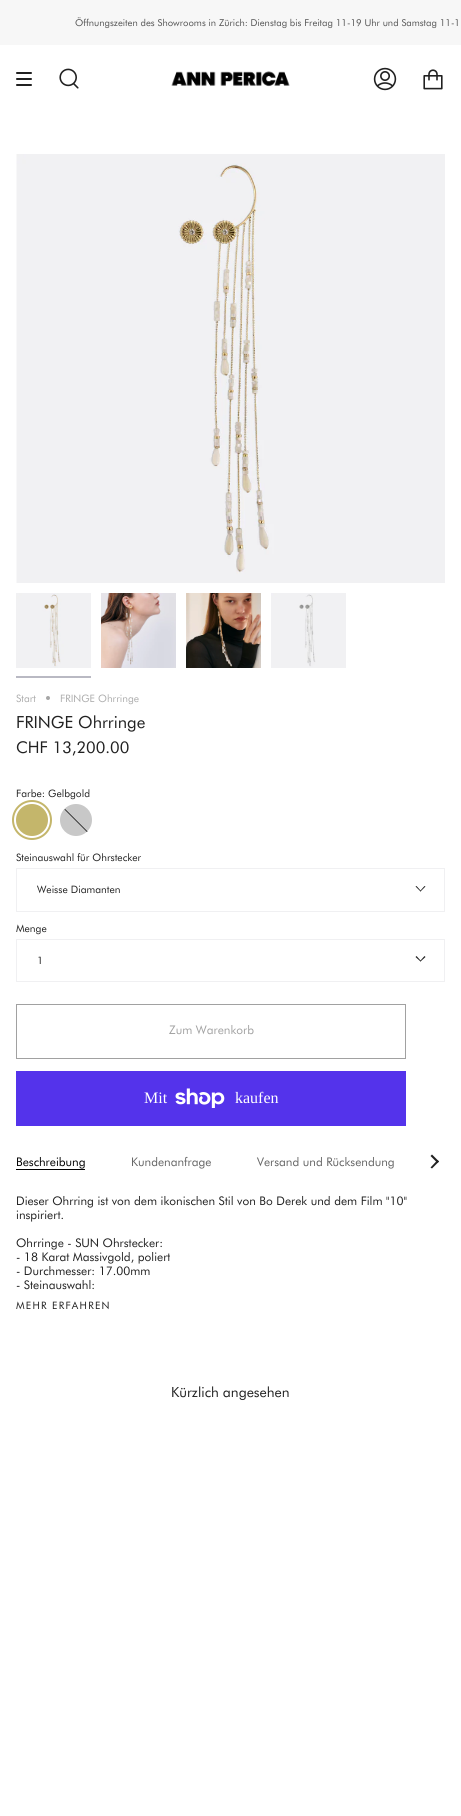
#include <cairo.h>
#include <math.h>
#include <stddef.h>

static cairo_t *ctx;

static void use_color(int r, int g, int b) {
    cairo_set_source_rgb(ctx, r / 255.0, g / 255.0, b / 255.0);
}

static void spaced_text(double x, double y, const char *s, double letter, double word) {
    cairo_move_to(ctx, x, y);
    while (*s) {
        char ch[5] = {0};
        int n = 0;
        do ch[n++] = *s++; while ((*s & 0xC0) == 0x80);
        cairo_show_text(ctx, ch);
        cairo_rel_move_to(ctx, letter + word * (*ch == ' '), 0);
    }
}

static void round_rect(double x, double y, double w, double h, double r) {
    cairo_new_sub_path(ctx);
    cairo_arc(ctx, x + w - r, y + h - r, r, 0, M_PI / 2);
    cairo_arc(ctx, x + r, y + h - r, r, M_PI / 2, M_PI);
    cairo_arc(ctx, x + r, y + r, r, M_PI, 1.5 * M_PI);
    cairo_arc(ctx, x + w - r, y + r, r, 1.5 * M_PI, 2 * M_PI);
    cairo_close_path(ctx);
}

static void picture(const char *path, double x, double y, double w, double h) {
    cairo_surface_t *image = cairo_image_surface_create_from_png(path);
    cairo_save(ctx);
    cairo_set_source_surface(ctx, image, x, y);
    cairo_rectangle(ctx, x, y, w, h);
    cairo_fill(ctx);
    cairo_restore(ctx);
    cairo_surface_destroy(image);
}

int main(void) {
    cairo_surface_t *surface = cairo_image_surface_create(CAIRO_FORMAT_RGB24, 461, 1816);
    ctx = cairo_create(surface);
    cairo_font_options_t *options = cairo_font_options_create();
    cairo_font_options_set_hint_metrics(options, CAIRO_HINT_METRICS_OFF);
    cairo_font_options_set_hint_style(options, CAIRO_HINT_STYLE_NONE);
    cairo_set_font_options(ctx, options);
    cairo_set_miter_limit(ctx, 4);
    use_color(255, 255, 255);
    cairo_paint(ctx);
    use_color(247, 247, 247);
    cairo_rectangle(ctx, 0, 0, 461, 45);
    cairo_fill(ctx);
    cairo_select_font_face(ctx, "Futura", CAIRO_FONT_SLANT_NORMAL, CAIRO_FONT_WEIGHT_NORMAL);
    cairo_set_font_size(ctx, 9.5);
    use_color(84, 84, 84);
    cairo_move_to(ctx, 75, 26);
    cairo_show_text(ctx, "Öffnungszeiten des Showrooms in Zürich: Dienstag bis Freitag 11-19 Uhr und Samstag 11-1");
    use_color(33, 33, 33);
    round_rect(16, 72, 16, 2, 1);
    cairo_fill(ctx);
    round_rect(16, 78, 16, 2, 1);
    cairo_fill(ctx);
    round_rect(16, 84, 16, 2, 1);
    cairo_fill(ctx);
    picture("img1.png", 59, 68, 20, 21);
    picture("img2.png", 171, 71, 119, 16);
    picture("img3.png", 373, 67, 24, 24);
    picture("img4.png", 423, 69, 20, 21);
    picture("img5.png", 16, 154, 429, 429);
    picture("img6.png", 16, 593, 75, 75);
    use_color(185, 185, 195);
    cairo_rectangle(ctx, 16, 676, 75, 2);
    cairo_fill(ctx);
    picture("img7.png", 101, 593, 75, 75);
    picture("img8.png", 186, 593, 75, 75);
    picture("img9.png", 271, 593, 75, 75);
    cairo_set_font_size(ctx, 10.25);
    use_color(172, 172, 172);
    cairo_move_to(ctx, 16, 702);
    cairo_show_text(ctx, "Start");
    use_color(166, 166, 166);
    cairo_new_path(ctx);
    cairo_arc(ctx, 48, 698, 2, 0, 2 * M_PI);
    cairo_fill(ctx);
    use_color(172, 172, 172);
    cairo_move_to(ctx, 60, 702);
    cairo_show_text(ctx, "FRINGE Ohrringe");
    cairo_set_font_size(ctx, 16.75);
    use_color(33, 33, 33);
    cairo_move_to(ctx, 16, 728);
    cairo_show_text(ctx, "FRINGE Ohrringe");
    cairo_set_font_size(ctx, 16.25);
    cairo_move_to(ctx, 16, 753);
    cairo_show_text(ctx, "CHF 13,200.00");
    cairo_set_font_size(ctx, 10.25);
    cairo_move_to(ctx, 16, 797);
    cairo_show_text(ctx, "Farbe: Gelbgold");
    use_color(196, 182, 107);
    cairo_new_path(ctx);
    cairo_arc(ctx, 32, 820, 16, 0, 2 * M_PI);
    cairo_fill(ctx);
    cairo_arc(ctx, 32, 820, 19, 0, 2 * M_PI);
    cairo_stroke(ctx);
    use_color(200, 200, 200);
    cairo_arc(ctx, 76, 820, 16, 0, 2 * M_PI);
    cairo_fill(ctx);
    use_color(0, 0, 0);
    cairo_new_path(ctx);
    cairo_move_to(ctx, 64.5, 809.5);
    cairo_line_to(ctx, 65, 809);
    cairo_line_to(ctx, 87.5, 831.5);
    cairo_line_to(ctx, 87, 832);
    cairo_close_path(ctx);
    cairo_fill(ctx);
    use_color(33, 33, 33);
    cairo_move_to(ctx, 16, 861);
    cairo_show_text(ctx, "Steinauswahl für Ohrstecker");
    cairo_rectangle(ctx, 16.5, 868.5, 428, 43);
    use_color(240, 240, 242);
    cairo_set_line_width(ctx, 1);
    cairo_stroke(ctx);
    use_color(33, 33, 33);
    cairo_move_to(ctx, 37, 893);
    cairo_show_text(ctx, "Weisse Diamanten");
    cairo_new_path(ctx);
    cairo_move_to(ctx, 420, 891);
    cairo_line_to(ctx, 424.5, 886);
    cairo_line_to(ctx, 425.5, 886.5);
    cairo_line_to(ctx, 420.5, 891.5);
    cairo_close_path(ctx);
    cairo_fill(ctx);
    cairo_new_path(ctx);
    cairo_move_to(ctx, 415.5, 886.5);
    cairo_line_to(ctx, 416.5, 886);
    cairo_line_to(ctx, 421, 891);
    cairo_line_to(ctx, 420.5, 891.5);
    cairo_close_path(ctx);
    cairo_fill(ctx);
    cairo_move_to(ctx, 16, 932);
    cairo_show_text(ctx, "Menge");
    cairo_rectangle(ctx, 16.5, 939.5, 428, 42);
    use_color(240, 240, 242);
    cairo_stroke(ctx);
    use_color(33, 33, 33);
    cairo_move_to(ctx, 37, 964);
    cairo_show_text(ctx, "1");
    cairo_new_path(ctx);
    cairo_move_to(ctx, 420, 961);
    cairo_line_to(ctx, 424.5, 956);
    cairo_line_to(ctx, 425.5, 957);
    cairo_line_to(ctx, 420.5, 961.5);
    cairo_close_path(ctx);
    cairo_fill(ctx);
    cairo_new_path(ctx);
    cairo_move_to(ctx, 415.5, 957);
    cairo_line_to(ctx, 416.5, 956);
    cairo_line_to(ctx, 421, 961);
    cairo_line_to(ctx, 420.5, 961.5);
    cairo_close_path(ctx);
    cairo_fill(ctx);
    cairo_rectangle(ctx, 16.5, 1004.5, 389, 54);
    use_color(161, 161, 161);
    cairo_stroke(ctx);
    cairo_set_font_size(ctx, 11.9);
    cairo_move_to(ctx, 169, 1034);
    cairo_show_text(ctx, "Zum Warenkorb");
    use_color(84, 51, 235);
    cairo_rectangle(ctx, 16, 1071, 390, 55);
    cairo_fill(ctx);
    cairo_select_font_face(ctx, "Liberation Serif", CAIRO_FONT_SLANT_NORMAL, CAIRO_FONT_WEIGHT_NORMAL);
    cairo_set_font_size(ctx, 16);
    use_color(255, 255, 255);
    cairo_move_to(ctx, 144, 1103);
    cairo_show_text(ctx, "Mit");
    picture("img10.png", 175, 1088, 50, 20);
    cairo_move_to(ctx, 235, 1103);
    cairo_show_text(ctx, "kaufen");
    use_color(0, 0, 0);
    cairo_rectangle(ctx, 16, 1169, 69, 1);
    cairo_fill(ctx);
    cairo_select_font_face(ctx, "Futura", CAIRO_FONT_SLANT_NORMAL, CAIRO_FONT_WEIGHT_NORMAL);
    cairo_set_font_size(ctx, 11.9);
    cairo_move_to(ctx, 16, 1166);
    cairo_show_text(ctx, "Beschreibung");
    use_color(100, 100, 100);
    cairo_move_to(ctx, 131, 1166);
    cairo_show_text(ctx, "Kundenanfrage");
    cairo_move_to(ctx, 257, 1166);
    cairo_show_text(ctx, "Versand und Rücksendung");
    use_color(33, 33, 33);
    cairo_new_path(ctx);
    cairo_move_to(ctx, 437.5, 1163);
    cairo_line_to(ctx, 430.5, 1156);
    cairo_line_to(ctx, 432, 1154.5);
    cairo_line_to(ctx, 439, 1161.5);
    cairo_close_path(ctx);
    cairo_fill(ctx);
    cairo_new_path(ctx);
    cairo_move_to(ctx, 432, 1168.5);
    cairo_line_to(ctx, 430.5, 1167.5);
    cairo_line_to(ctx, 437.5, 1160);
    cairo_line_to(ctx, 439, 1161.5);
    cairo_close_path(ctx);
    cairo_fill(ctx);
    cairo_move_to(ctx, 16, 1205);
    cairo_show_text(ctx, "Dieser Ohrring ist von dem ikonischen Stil von Bo Derek und dem Film \"10\"");
    cairo_move_to(ctx, 16, 1219);
    cairo_show_text(ctx, "inspiriert.");
    cairo_move_to(ctx, 16, 1247);
    cairo_show_text(ctx, "Ohrringe - SUN Ohrstecker:");
    cairo_move_to(ctx, 16, 1261);
    cairo_show_text(ctx, "- 18 Karat Massivgold, poliert");
    cairo_move_to(ctx, 16, 1275);
    cairo_show_text(ctx, "- Durchmesser: 17.00mm");
    cairo_move_to(ctx, 16, 1289);
    cairo_show_text(ctx, "- Steinauswahl:");
    cairo_set_font_size(ctx, 10.25);
    spaced_text(16, 1309, "MEHR ERFAHREN", 1.25, 0);
    cairo_set_font_size(ctx, 14);
    cairo_move_to(ctx, 171, 1397);
    cairo_show_text(ctx, "Kürzlich angesehen");
    cairo_surface_write_to_png(surface, "result.png");
    cairo_font_options_destroy(options);
    cairo_destroy(ctx);
    cairo_surface_destroy(surface);
    return 0;
}
